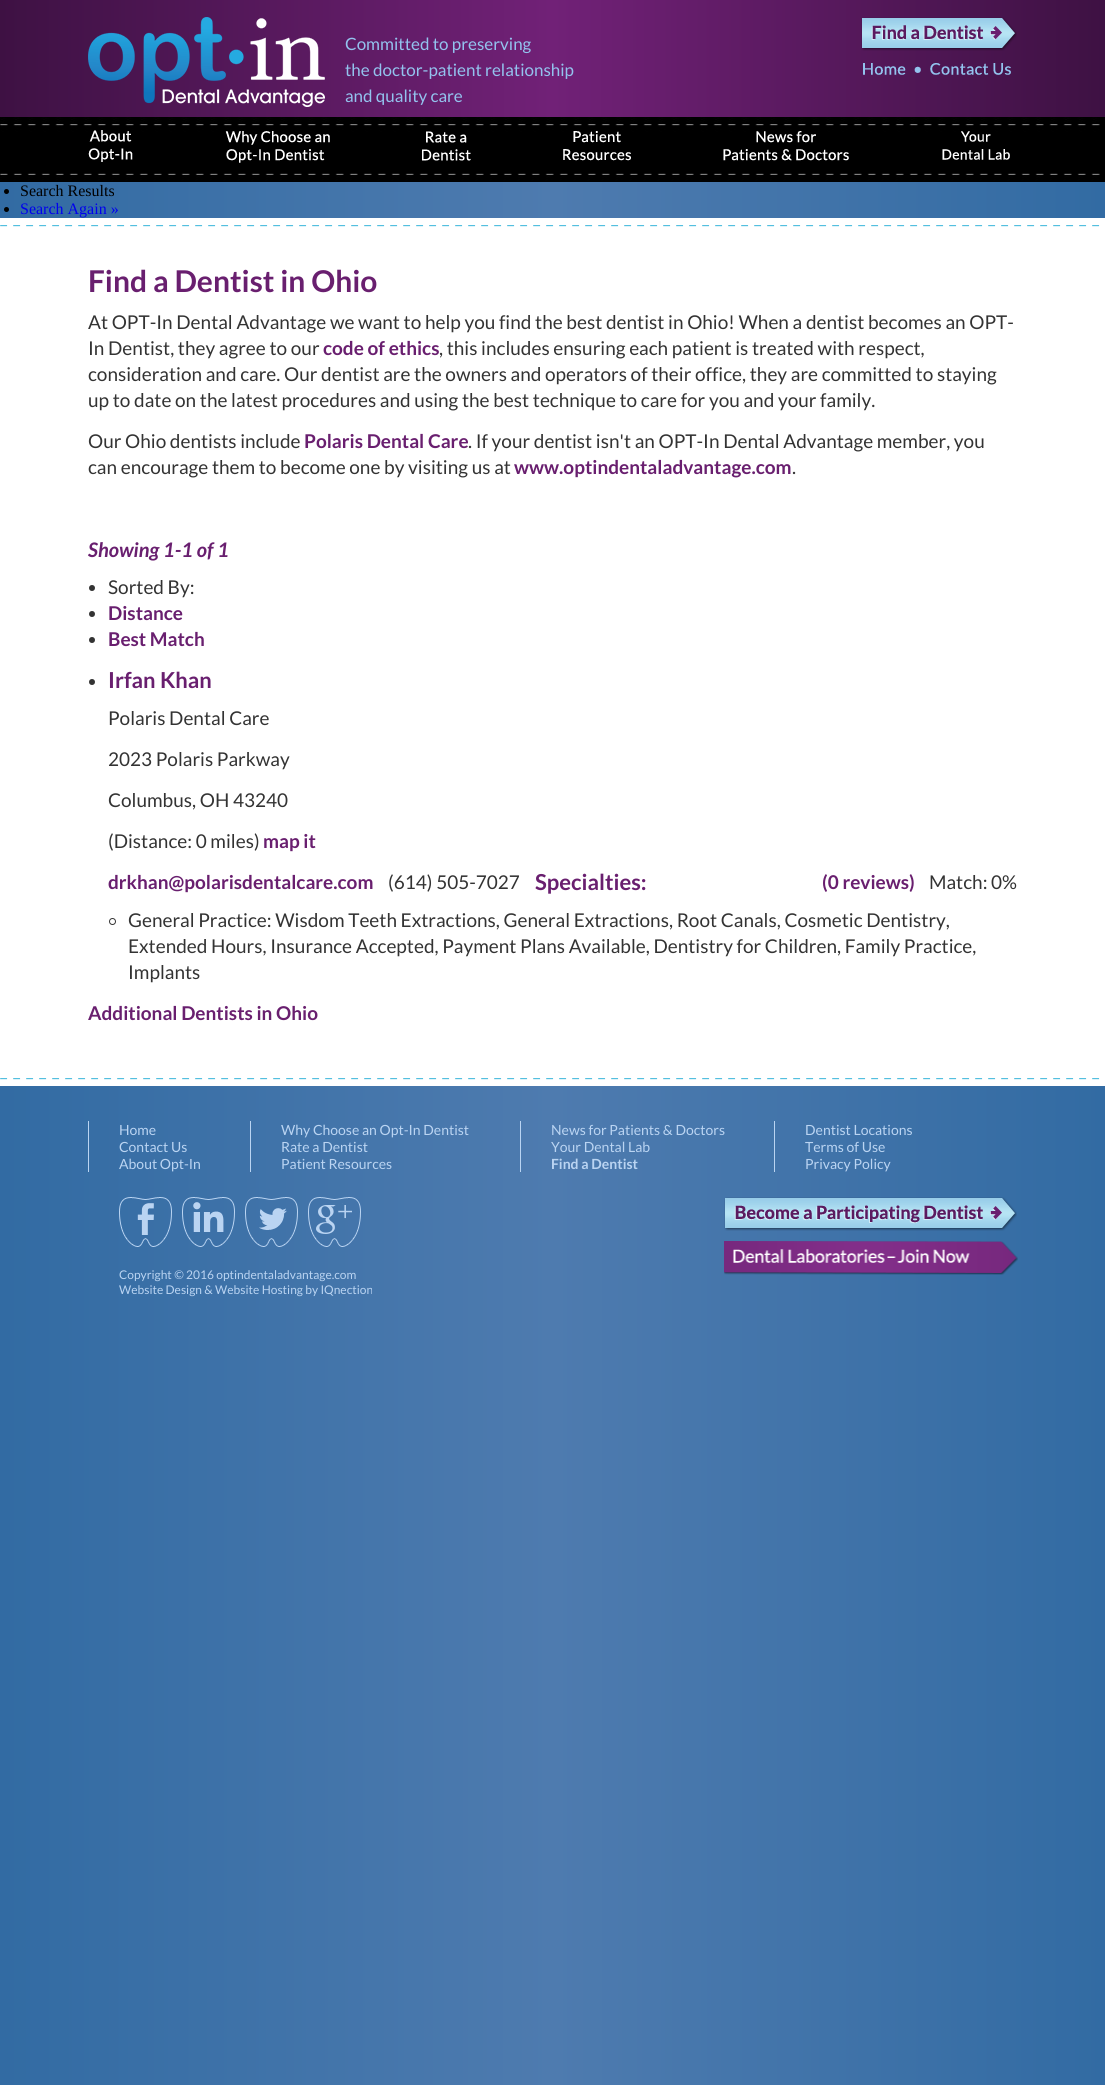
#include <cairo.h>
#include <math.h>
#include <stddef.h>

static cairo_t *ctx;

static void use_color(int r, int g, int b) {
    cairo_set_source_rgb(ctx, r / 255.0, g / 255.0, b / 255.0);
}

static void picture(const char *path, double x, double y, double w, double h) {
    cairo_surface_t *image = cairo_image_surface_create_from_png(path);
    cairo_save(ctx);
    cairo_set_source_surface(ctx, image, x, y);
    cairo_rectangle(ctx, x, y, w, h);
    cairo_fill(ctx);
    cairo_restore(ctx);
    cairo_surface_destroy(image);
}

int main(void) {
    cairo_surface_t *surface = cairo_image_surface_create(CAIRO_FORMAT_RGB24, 1105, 2085);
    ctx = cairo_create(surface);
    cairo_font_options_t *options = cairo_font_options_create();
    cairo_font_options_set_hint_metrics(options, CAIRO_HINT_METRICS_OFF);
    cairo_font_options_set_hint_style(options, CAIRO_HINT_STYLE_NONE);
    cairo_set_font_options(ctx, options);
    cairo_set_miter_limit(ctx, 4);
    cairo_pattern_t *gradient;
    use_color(255, 255, 255);
    cairo_paint(ctx);
    gradient = cairo_pattern_create_linear(0, 666, 1105, 666);
    cairo_pattern_add_color_stop_rgba(gradient, 0, 0.196, 0.42, 0.639, 1);
    cairo_pattern_add_color_stop_rgba(gradient, 0.5, 0.306, 0.482, 0.686, 1);
    cairo_pattern_add_color_stop_rgba(gradient, 1, 0.196, 0.42, 0.639, 1);
    cairo_set_source(ctx, gradient);
    cairo_pattern_destroy(gradient);
    cairo_rectangle(ctx, 0, 182, 1105, 1903);
    cairo_fill(ctx);
    gradient = cairo_pattern_create_linear(0, 91, 1105, 91);
    cairo_pattern_add_color_stop_rgba(gradient, 0, 0.243, 0.067, 0.263, 1);
    cairo_pattern_add_color_stop_rgba(gradient, 0.5, 0.443, 0.129, 0.467, 1);
    cairo_pattern_add_color_stop_rgba(gradient, 1, 0.243, 0.067, 0.263, 1);
    cairo_set_source(ctx, gradient);
    cairo_pattern_destroy(gradient);
    cairo_rectangle(ctx, 0, 0, 1105, 117);
    cairo_fill(ctx);
    picture("img1.png", 0, 117, 1105, 65);
    picture("img2.png", 88, 17, 237, 90);
    cairo_select_font_face(ctx, "Lato", CAIRO_FONT_SLANT_NORMAL, CAIRO_FONT_WEIGHT_NORMAL);
    cairo_set_font_size(ctx, 17);
    use_color(147, 195, 238);
    cairo_move_to(ctx, 345, 50);
    cairo_show_text(ctx, "Committed to preserving");
    cairo_move_to(ctx, 345, 76);
    cairo_show_text(ctx, "the doctor-patient relationship");
    cairo_move_to(ctx, 345, 102);
    cairo_show_text(ctx, "and quality care");
    picture("img3.png", 861, 17, 156, 34);
    picture("img4.png", 863, 63, 55, 12);
    picture("img5.png", 918, 63, 93, 12);
    picture("img6.png", 88, 130, 45, 32);
    picture("img7.png", 225, 131, 105, 32);
    picture("img8.png", 422, 131, 49, 30);
    picture("img9.png", 563, 131, 68, 30);
    picture("img10.png", 723, 131, 126, 30);
    picture("img11.png", 942, 131, 68, 29);
    use_color(0, 0, 0);
    cairo_arc(ctx, 6.5, 191.5, 2.5, 0, 2 * M_PI);
    cairo_fill(ctx);
    cairo_select_font_face(ctx, "Liberation Serif", CAIRO_FONT_SLANT_NORMAL, CAIRO_FONT_WEIGHT_NORMAL);
    cairo_set_font_size(ctx, 16);
    cairo_move_to(ctx, 20, 196);
    cairo_show_text(ctx, "Search Results");
    cairo_new_path(ctx);
    cairo_arc(ctx, 6.5, 209.5, 2.5, 0, 2 * M_PI);
    cairo_fill(ctx);
    use_color(0, 0, 238);
    cairo_move_to(ctx, 20, 214);
    cairo_show_text(ctx, "Search Again »");
    use_color(255, 255, 255);
    cairo_rectangle(ctx, 0, 218, 1105, 868);
    cairo_fill(ctx);
    picture("img12.png", 0, 225, 1100, 2);
    cairo_select_font_face(ctx, "Lato", CAIRO_FONT_SLANT_NORMAL, CAIRO_FONT_WEIGHT_BOLD);
    cairo_set_font_size(ctx, 30);
    use_color(105, 31, 111);
    cairo_move_to(ctx, 88, 292);
    cairo_show_text(ctx, "Find a Dentist in Ohio");
    cairo_select_font_face(ctx, "Lato", CAIRO_FONT_SLANT_NORMAL, CAIRO_FONT_WEIGHT_NORMAL);
    cairo_set_font_size(ctx, 19);
    use_color(51, 51, 51);
    cairo_move_to(ctx, 88, 329);
    cairo_show_text(ctx, "At OPT-In Dental Advantage we want to help you find the best dentist in Ohio! When a dentist becomes an OPT-");
    cairo_move_to(ctx, 88, 355);
    cairo_show_text(ctx, "In Dentist, they agree to our");
    cairo_select_font_face(ctx, "Lato", CAIRO_FONT_SLANT_NORMAL, CAIRO_FONT_WEIGHT_BOLD);
    use_color(105, 31, 111);
    cairo_move_to(ctx, 323, 355);
    cairo_show_text(ctx, "code of ethics");
    cairo_select_font_face(ctx, "Lato", CAIRO_FONT_SLANT_NORMAL, CAIRO_FONT_WEIGHT_NORMAL);
    use_color(51, 51, 51);
    cairo_move_to(ctx, 439, 355);
    cairo_show_text(ctx, ", this includes ensuring each patient is treated with respect,");
    cairo_move_to(ctx, 88, 381);
    cairo_show_text(ctx, "consideration and care. Our dentist are the owners and operators of their office, they are committed to staying");
    cairo_move_to(ctx, 88, 407);
    cairo_show_text(ctx, "up to date on the latest procedures and using the best technique to care for you and your family.");
    cairo_move_to(ctx, 88, 448);
    cairo_show_text(ctx, "Our Ohio dentists include");
    cairo_select_font_face(ctx, "Lato", CAIRO_FONT_SLANT_NORMAL, CAIRO_FONT_WEIGHT_BOLD);
    use_color(105, 31, 111);
    cairo_move_to(ctx, 304, 448);
    cairo_show_text(ctx, "Polaris Dental Care");
    cairo_select_font_face(ctx, "Lato", CAIRO_FONT_SLANT_NORMAL, CAIRO_FONT_WEIGHT_NORMAL);
    use_color(51, 51, 51);
    cairo_move_to(ctx, 468, 448);
    cairo_show_text(ctx, ". If your dentist isn't an OPT-In Dental Advantage member, you");
    cairo_move_to(ctx, 88, 474);
    cairo_show_text(ctx, "can encourage them to become one by visiting us at");
    cairo_select_font_face(ctx, "Lato", CAIRO_FONT_SLANT_NORMAL, CAIRO_FONT_WEIGHT_BOLD);
    use_color(105, 31, 111);
    cairo_move_to(ctx, 514, 474);
    cairo_show_text(ctx, "www.optindentaladvantage.com");
    cairo_select_font_face(ctx, "Lato", CAIRO_FONT_SLANT_NORMAL, CAIRO_FONT_WEIGHT_NORMAL);
    use_color(51, 51, 51);
    cairo_move_to(ctx, 792, 474);
    cairo_show_text(ctx, ".");
    cairo_select_font_face(ctx, "Lato", CAIRO_FONT_SLANT_ITALIC, CAIRO_FONT_WEIGHT_BOLD);
    cairo_set_font_size(ctx, 20);
    use_color(105, 31, 111);
    cairo_move_to(ctx, 88, 557);
    cairo_show_text(ctx, "Showing 1-1 of 1");
    use_color(51, 51, 51);
    cairo_new_path(ctx);
    cairo_arc(ctx, 92, 588, 3, 0, 2 * M_PI);
    cairo_fill(ctx);
    cairo_select_font_face(ctx, "Lato", CAIRO_FONT_SLANT_NORMAL, CAIRO_FONT_WEIGHT_NORMAL);
    cairo_set_font_size(ctx, 19);
    cairo_move_to(ctx, 108, 594);
    cairo_show_text(ctx, "Sorted By:");
    cairo_new_path(ctx);
    cairo_arc(ctx, 92, 614, 3, 0, 2 * M_PI);
    cairo_fill(ctx);
    cairo_select_font_face(ctx, "Lato", CAIRO_FONT_SLANT_NORMAL, CAIRO_FONT_WEIGHT_BOLD);
    use_color(105, 31, 111);
    cairo_move_to(ctx, 108, 620);
    cairo_show_text(ctx, "Distance");
    use_color(51, 51, 51);
    cairo_new_path(ctx);
    cairo_arc(ctx, 92, 640, 3, 0, 2 * M_PI);
    cairo_fill(ctx);
    use_color(105, 31, 111);
    cairo_move_to(ctx, 108, 646);
    cairo_show_text(ctx, "Best Match");
    use_color(51, 51, 51);
    cairo_new_path(ctx);
    cairo_arc(ctx, 92, 682, 3, 0, 2 * M_PI);
    cairo_fill(ctx);
    cairo_set_font_size(ctx, 22);
    use_color(105, 31, 111);
    cairo_move_to(ctx, 108, 688);
    cairo_show_text(ctx, "Irfan Khan");
    cairo_select_font_face(ctx, "Lato", CAIRO_FONT_SLANT_NORMAL, CAIRO_FONT_WEIGHT_NORMAL);
    cairo_set_font_size(ctx, 19);
    use_color(51, 51, 51);
    cairo_move_to(ctx, 108, 725);
    cairo_show_text(ctx, "Polaris Dental Care");
    cairo_move_to(ctx, 108, 766);
    cairo_show_text(ctx, "2023 Polaris Parkway");
    cairo_move_to(ctx, 108, 807);
    cairo_show_text(ctx, "Columbus, OH 43240");
    cairo_move_to(ctx, 108, 848);
    cairo_show_text(ctx, "(Distance: 0 miles)");
    cairo_select_font_face(ctx, "Lato", CAIRO_FONT_SLANT_NORMAL, CAIRO_FONT_WEIGHT_BOLD);
    use_color(105, 31, 111);
    cairo_move_to(ctx, 263, 848);
    cairo_show_text(ctx, "map it");
    cairo_set_font_size(ctx, 22);
    cairo_move_to(ctx, 535, 890);
    cairo_show_text(ctx, "Specialties:");
    cairo_new_path(ctx);
    cairo_arc(ctx, 112.5, 921.5, 3, 0, 2 * M_PI);
    use_color(51, 51, 51);
    cairo_set_line_width(ctx, 1);
    cairo_stroke(ctx);
    cairo_select_font_face(ctx, "Lato", CAIRO_FONT_SLANT_NORMAL, CAIRO_FONT_WEIGHT_NORMAL);
    cairo_set_font_size(ctx, 19);
    cairo_move_to(ctx, 128, 927);
    cairo_show_text(ctx, "General Practice: Wisdom Teeth Extractions, General Extractions, Root Canals, Cosmetic Dentistry,");
    cairo_move_to(ctx, 128, 953);
    cairo_show_text(ctx, "Extended Hours, Insurance Accepted, Payment Plans Available, Dentistry for Children, Family Practice,");
    cairo_move_to(ctx, 128, 979);
    cairo_show_text(ctx, "Implants");
    cairo_select_font_face(ctx, "Lato", CAIRO_FONT_SLANT_NORMAL, CAIRO_FONT_WEIGHT_BOLD);
    use_color(105, 31, 111);
    cairo_move_to(ctx, 108, 889);
    cairo_show_text(ctx, "drkhan@polarisdentalcare.com");
    cairo_select_font_face(ctx, "Lato", CAIRO_FONT_SLANT_NORMAL, CAIRO_FONT_WEIGHT_NORMAL);
    use_color(51, 51, 51);
    cairo_move_to(ctx, 388, 889);
    cairo_show_text(ctx, "(614) 505-7027");
    cairo_select_font_face(ctx, "Lato", CAIRO_FONT_SLANT_NORMAL, CAIRO_FONT_WEIGHT_BOLD);
    use_color(105, 31, 111);
    cairo_move_to(ctx, 822, 889);
    cairo_show_text(ctx, "(0 reviews)");
    cairo_select_font_face(ctx, "Lato", CAIRO_FONT_SLANT_NORMAL, CAIRO_FONT_WEIGHT_NORMAL);
    use_color(51, 51, 51);
    cairo_move_to(ctx, 929, 889);
    cairo_show_text(ctx, "Match: 0%");
    cairo_select_font_face(ctx, "Lato", CAIRO_FONT_SLANT_NORMAL, CAIRO_FONT_WEIGHT_BOLD);
    use_color(105, 31, 111);
    cairo_move_to(ctx, 88, 1020);
    cairo_show_text(ctx, "Additional Dentists in Ohio");
    picture("img12.png", 0, 1078, 1100, 2);
    use_color(186, 212, 242);
    cairo_rectangle(ctx, 88, 1121, 1, 51);
    cairo_fill(ctx);
    cairo_select_font_face(ctx, "Lato", CAIRO_FONT_SLANT_NORMAL, CAIRO_FONT_WEIGHT_NORMAL);
    cairo_set_font_size(ctx, 14);
    cairo_move_to(ctx, 119, 1135);
    cairo_show_text(ctx, "Home");
    cairo_move_to(ctx, 119, 1152);
    cairo_show_text(ctx, "Contact Us");
    cairo_move_to(ctx, 119, 1169);
    cairo_show_text(ctx, "About Opt-In");
    cairo_rectangle(ctx, 250, 1121, 1, 51);
    cairo_fill(ctx);
    cairo_move_to(ctx, 281, 1135);
    cairo_show_text(ctx, "Why Choose an Opt-In Dentist");
    cairo_move_to(ctx, 281, 1152);
    cairo_show_text(ctx, "Rate a Dentist");
    cairo_move_to(ctx, 281, 1169);
    cairo_show_text(ctx, "Patient Resources");
    cairo_rectangle(ctx, 520, 1121, 1, 51);
    cairo_fill(ctx);
    cairo_move_to(ctx, 551, 1135);
    cairo_show_text(ctx, "News for Patients & Doctors");
    cairo_move_to(ctx, 551, 1152);
    cairo_show_text(ctx, "Your Dental Lab");
    cairo_select_font_face(ctx, "Lato", CAIRO_FONT_SLANT_NORMAL, CAIRO_FONT_WEIGHT_BOLD);
    cairo_move_to(ctx, 551, 1169);
    cairo_show_text(ctx, "Find a Dentist");
    cairo_rectangle(ctx, 774, 1121, 1, 51);
    cairo_fill(ctx);
    cairo_select_font_face(ctx, "Lato", CAIRO_FONT_SLANT_NORMAL, CAIRO_FONT_WEIGHT_NORMAL);
    cairo_move_to(ctx, 805, 1135);
    cairo_show_text(ctx, "Dentist Locations");
    cairo_move_to(ctx, 805, 1152);
    cairo_show_text(ctx, "Terms of Use");
    cairo_move_to(ctx, 805, 1169);
    cairo_show_text(ctx, "Privacy Policy");
    picture("img13.png", 724, 1197, 293, 34);
    picture("img14.png", 724, 1241, 294, 34);
    picture("img15.png", 119, 1197, 53, 50);
    picture("img16.png", 182, 1197, 53, 50);
    picture("img17.png", 245, 1197, 53, 50);
    picture("img18.png", 308, 1197, 53, 50);
    cairo_set_font_size(ctx, 12);
    cairo_move_to(ctx, 119, 1279);
    cairo_show_text(ctx, "Copyright © 2016 optindentaladvantage.com");
    cairo_move_to(ctx, 119, 1294);
    cairo_show_text(ctx, "Website Design & Website Hosting by IQnection");
    cairo_surface_write_to_png(surface, "result.png");
    cairo_font_options_destroy(options);
    cairo_destroy(ctx);
    cairo_surface_destroy(surface);
    return 0;
}
